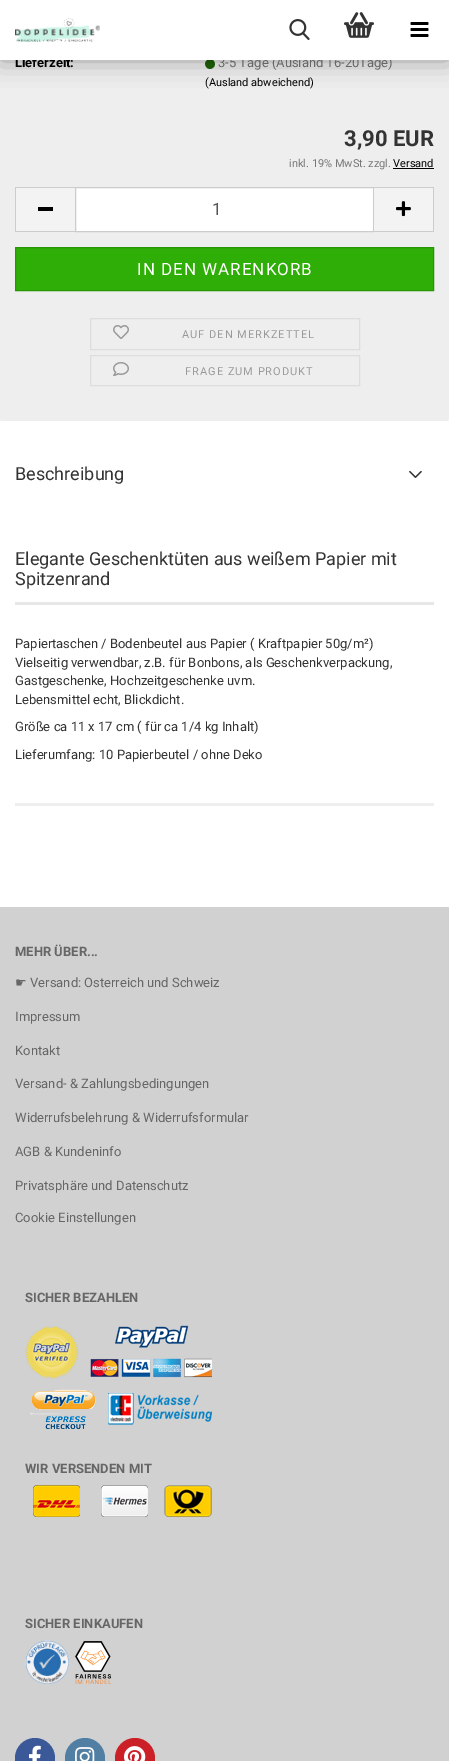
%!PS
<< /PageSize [449 1761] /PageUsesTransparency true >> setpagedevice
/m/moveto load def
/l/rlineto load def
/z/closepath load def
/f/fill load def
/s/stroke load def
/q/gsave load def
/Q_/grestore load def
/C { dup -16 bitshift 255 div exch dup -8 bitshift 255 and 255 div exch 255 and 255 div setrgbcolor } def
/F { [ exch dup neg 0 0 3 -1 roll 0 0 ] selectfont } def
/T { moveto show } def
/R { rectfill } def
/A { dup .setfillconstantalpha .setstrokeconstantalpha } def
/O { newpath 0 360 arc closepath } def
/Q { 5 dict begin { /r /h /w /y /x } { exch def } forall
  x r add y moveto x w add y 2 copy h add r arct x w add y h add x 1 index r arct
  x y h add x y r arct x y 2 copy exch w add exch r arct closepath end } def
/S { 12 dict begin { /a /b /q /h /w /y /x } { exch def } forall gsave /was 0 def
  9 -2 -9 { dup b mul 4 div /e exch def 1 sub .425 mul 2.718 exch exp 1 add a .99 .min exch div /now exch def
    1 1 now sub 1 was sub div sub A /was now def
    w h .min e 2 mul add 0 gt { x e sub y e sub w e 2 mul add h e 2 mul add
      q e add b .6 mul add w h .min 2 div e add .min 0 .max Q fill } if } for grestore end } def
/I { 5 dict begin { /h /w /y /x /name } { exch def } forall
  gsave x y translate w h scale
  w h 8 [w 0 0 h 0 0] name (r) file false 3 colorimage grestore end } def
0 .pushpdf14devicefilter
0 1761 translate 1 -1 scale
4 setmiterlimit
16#FFFFFF C
0 0 449 1761 R
16#EEEEEE C
0 7 449 414 2 Q f
(5.rgb) 205 60 10 9 I
16#000000 C
0 0 449 60 0 12.5 .35 S
/Roboto-Bold 13 F
(Lieferzeit:) 15 67 T
/Roboto-Regular 13 F
16#666666 C
(3-5 Tage \(Ausland 16-20Tage\)) 218 67 T
16#FFFFFF C
0 0 449 60 R
(1.rgb) 15 18 85 24 I
(2.rgb) 289 19 21 21 I
(3.rgb) 344 12 30 26 I
(4.rgb) 410 22 19 15 I
/Roboto-Regular 11 F
16#000000 C
(\(Ausland abweichend\)) 205 86 T
/Roboto-Bold 22 F
16#333333 C
(3,90 EUR) 344 146 T
/Roboto-Regular 11 F
16#777777 C
(inkl. 19% MwSt. zzgl.) 289 167 T
16#000000 C
(Versand) 393 167 T
393 168 41 1 R
16#F3F3F3 C
16 188 59 43 R
16#CCCCCC C
15 187 60 1 R
15 231 60 1 R
15 187 1 45 R
16#000000 C
38 207 15 4 R
16#FFFFFF C
75.5 187.5 m 298 0 l 0 44 l -298 0 l z q f Q_
16#CCCCCC C
s
/Roboto-Regular 17 F
16#555555 C
(1) 212 215 T
16#F3F3F3 C
374 188 59 43 R
16#CCCCCC C
374 187 60 1 R
433 187 1 45 R
374 231 60 1 R
(6.rgb) 396 201 15 16 I
16#2EAE06 C
15.5 247.5 m 418 0 l 0 43 l -418 0 l z q f Q_
16#279505 C
s
16#FFFFFF C
137 275 m 1 0 (IN DEN WARENKORB) ashow
16#DDDDDD C
90.5 318.5 269 31 rectstroke
(7.rgb) 113 325 16 14 I
/Roboto-Regular 11 F
16#999999 C
182 338 m 1 0 (AUF DEN MERKZETTEL) ashow
16#DDDDDD C
90.5 355.5 269 30 rectstroke
(8.rgb) 113 362 16 14 I
16#999999 C
185 375 m 1 0 (FRAGE ZUM PRODUKT) ashow
/Roboto-Regular 18 F
16#333333 C
(Beschreibung) 15 480 T
(9.rgb) 409 470 13 8 I
16#EEEEEE C
15 803 419 3 R
16#E7E7E7 C
15 602 419 3 R
16#333333 C
(Elegante Geschenktüten aus weißem Papier mit) 15 565 T
(Spitzenrand) 15 585 T
/Roboto-Regular 13 F
(Papiertaschen / Bodenbeutel aus Papier \( Kraftpapier 50g/m²\)) 15 648 T
(Vielseitig verwendbar, z.B. für Bonbons, als Geschenkverpackung,) 15 667 T
(Gastgeschenke, Hochzeitgeschenke uvm.) 15 685 T
(Lebensmittel echt, Blickdicht.) 15 704 T
(Größe ca 11 x 17 cm \( für ca 1/4 kg Inhalt\)) 15 731 T
(Lieferumfang: 10 Papierbeutel / ohne Deko) 15 759 T
16#D1D1D1 C
0 907 449 854 R
/Roboto-Bold 13 F
16#666666 C
(MEHR ÜBER...) 15 956 T
/DejaVuSans-Regular 13 F
(☛) 15 987 T
/Roboto-Regular 13 F
(Versand: Osterreich und Schweiz) 30 987 T
(Impressum) 15 1021 T
(Kontakt) 15 1055 T
(Versand- & Zahlungsbedingungen) 15 1088 T
(Widerrufsbelehrung & Widerrufsformular) 15 1122 T
(AGB & Kundeninfo) 15 1156 T
(Privatsphäre und Datenschutz) 15 1190 T
(Cookie Einstellungen) 15 1222 T
/Roboto-Bold 13 F
(SICHER BEZAHLEN) 25 1302 T
(10.rgb) 25 1325 187 104 I
(WIR VERSENDEN MIT) 25 1473 T
(11.rgb) 33 1485 179 32 I
(SICHER EINKAUFEN) 25 1628 T
(12.rgb) 25 1640 44 44 I
(13.rgb) 74 1641 38 43 I
16#3B5998 C
35 1758 20 O f
(14.rgb) 29 1745 12 16 I
16#517FA4 C
85 1758 20 O f
(15.rgb) 75 1747 20 14 I
16#CB2027 C
135 1758 20 O f
(16.rgb) 124 1746 22 15 I
.poppdf14devicefilter showpage
